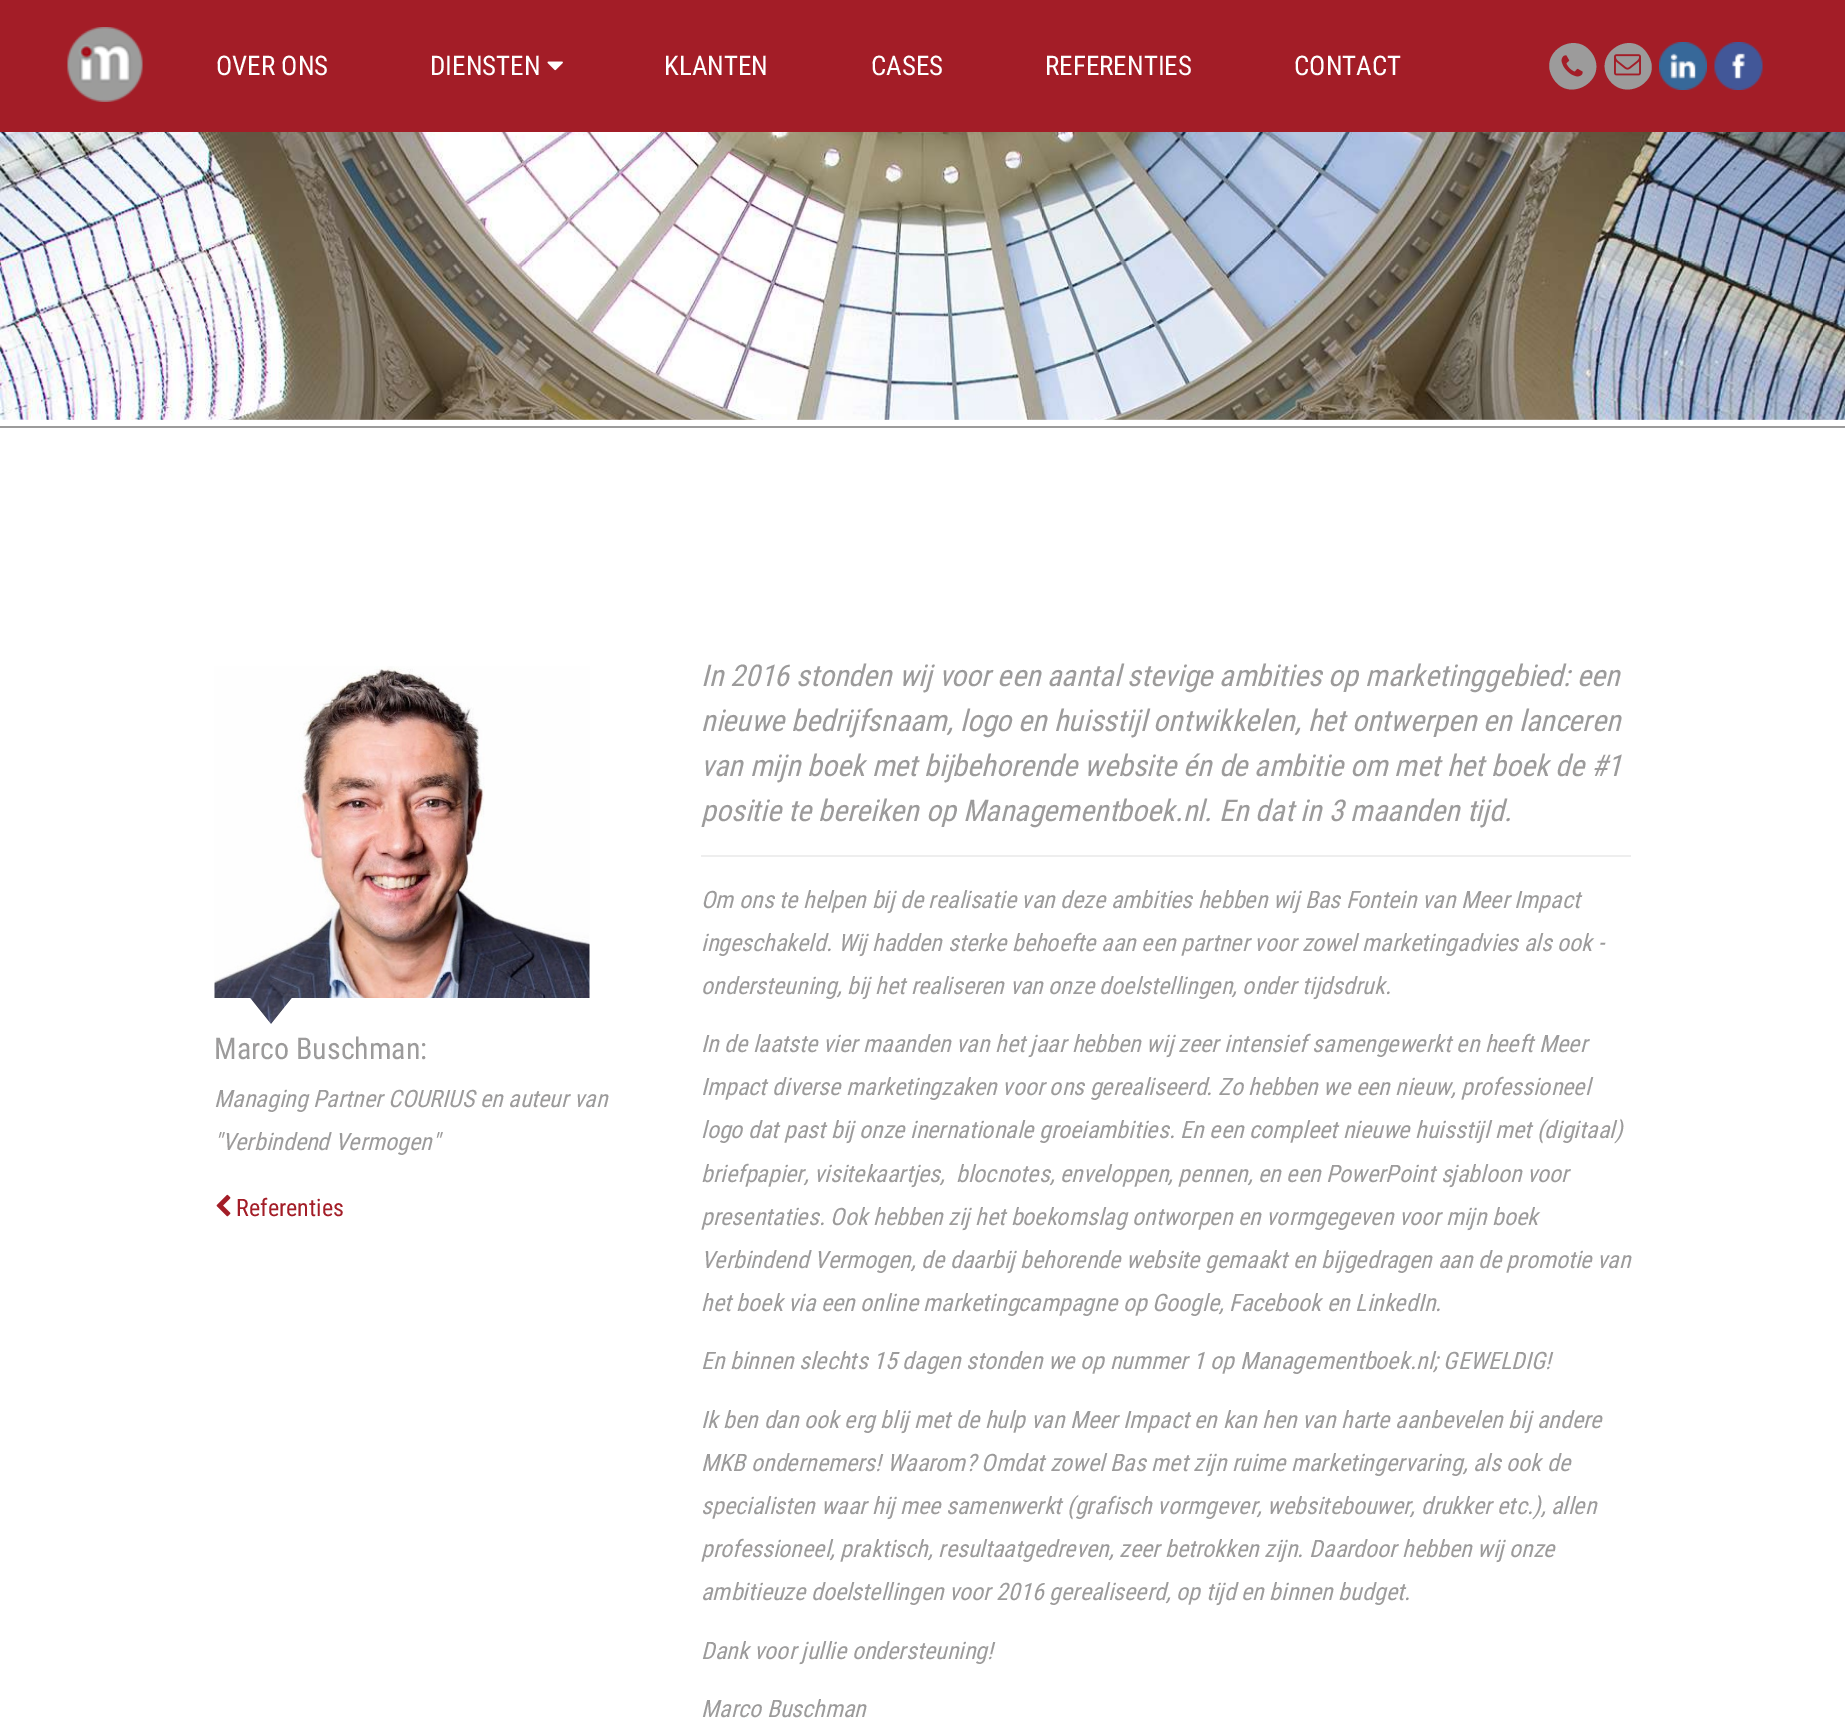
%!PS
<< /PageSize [1845 1732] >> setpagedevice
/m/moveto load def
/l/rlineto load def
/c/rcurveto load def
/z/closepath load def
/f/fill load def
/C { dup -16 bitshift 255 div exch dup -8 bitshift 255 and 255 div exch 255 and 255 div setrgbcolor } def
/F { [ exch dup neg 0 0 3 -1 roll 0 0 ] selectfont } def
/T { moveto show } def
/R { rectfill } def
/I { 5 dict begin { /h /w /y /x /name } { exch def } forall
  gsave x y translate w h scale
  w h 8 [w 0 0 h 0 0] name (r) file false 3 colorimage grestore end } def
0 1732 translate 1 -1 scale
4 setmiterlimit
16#FFFFFF C
0 0 1845 1732 R
16#A31D27 C
0 0 1845 132 R
(1.rgb) 67 27 76 75 I
/RobotoCondensed-Regular 27 F
16#FFFFFF C
(OVER ONS) 216 75 T
(DIENSTEN) 430 75 T
(2.rgb) 547 61 16 10 I
(KLANTEN) 664 75 T
(CASES) 871 75 T
(REFERENTIES) 1045 75 T
(CONTACT) 1294 75 T
16#9C9B9B C
1593 55 m 15 26 -25 49 -40 23 c -16 -26 24 -50 40 -23 c z f
(3.rgb) 1561 55 22 22 I
1648 55 m 16 26 -24 49 -40 23 c -15 -26 25 -50 40 -23 c z f
(4.rgb) 1614 54 27 22 I
(5.rgb) 1659 42 48 48 I
(6.rgb) 1714 42 49 48 I
0 426 1845 2 R
(7.rgb) 0 132 1845 288 I
(8.rgb) 214 666 376 359 I
16#FFFFFF C
274 1028 m -60 0 l 0 -30 l 36 0 l z f
590 1028 m -322 0 l 24 -30 l 298 0 l z f
/RobotoCondensed-Regular 30 F
16#9C9B9B C
(Marco Buschman:) 214 1059 T
/RobotoCondensed-Italic 24 F
(Managing Partner COURIUS en auteur van) 214 1107 T
("Verbindend Vermogen") 214 1150 T
(9.rgb) 216 1194 15 23 I
/RobotoCondensed-Regular 24 F
16#A31D27 C
(Referenties) 236 1216 T
16#EEEEEE C
701 855 930 2 R
/RobotoCondensed-Italic 30 F
16#9C9B9B C
(In 2016 stonden wij voor een aantal stevige ambities op marketinggebied: een) 701 686 T
(nieuwe bedrijfsnaam, logo en huisstijl ontwikkelen, het ontwerpen en lanceren) 701 731 T
(van mijn boek met bijbehorende website én de ambitie om met het boek de #1) 701 776 T
(positie te bereiken op Managementboek.nl. En dat in 3 maanden tijd.) 701 821 T
/RobotoCondensed-Italic 24 F
(Om ons te helpen bij de realisatie van deze ambities hebben wij Bas Fontein van Meer Impact) 701 908 T
(ingeschakeld. Wij hadden sterke behoefte aan een partner voor zowel marketingadvies als ook -) 701 951 T
(ondersteuning, bij het realiseren van onze doelstellingen, onder tijdsdruk.) 701 994 T
(In de laatste vier maanden van het jaar hebben wij zeer intensief samengewerkt en heeft Meer) 701 1052 T
(Impact diverse marketingzaken voor ons gerealiseerd. Zo hebben we een nieuw, professioneel) 701 1095 T
(logo dat past bij onze inernationale groeiambities. En een compleet nieuwe huisstijl met \(digitaal\)) 701 1138 T
(briefpapier, visitekaartjes,  blocnotes, enveloppen, pennen, en een PowerPoint sjabloon voor) 701 1182 T
(presentaties. Ook hebben zij het boekomslag ontworpen en vormgegeven voor mijn boek) 701 1225 T
(Verbindend Vermogen, de daarbij behorende website gemaakt en bijgedragen aan de promotie van) 701 1268 T
(het boek via een online marketingcampagne op Google, Facebook en LinkedIn.) 701 1311 T
(En binnen slechts 15 dagen stonden we op nummer 1 op Managementboek.nl; GEWELDIG!) 701 1369 T
(Ik ben dan ook erg blij met de hulp van Meer Impact en kan hen van harte aanbevelen bij andere) 701 1428 T
(MKB ondernemers! Waarom? Omdat zowel Bas met zijn ruime marketingervaring, als ook de) 701 1471 T
(specialisten waar hij mee samenwerkt \(grafisch vormgever, websitebouwer, drukker etc.\), allen) 701 1514 T
(professioneel, praktisch, resultaatgedreven, zeer betrokken zijn. Daardoor hebben wij onze) 701 1557 T
(ambitieuze doelstellingen voor 2016 gerealiseerd, op tijd en binnen budget.) 701 1600 T
(Dank voor jullie ondersteuning!) 701 1659 T
(Marco Buschman) 701 1717 T
showpage
